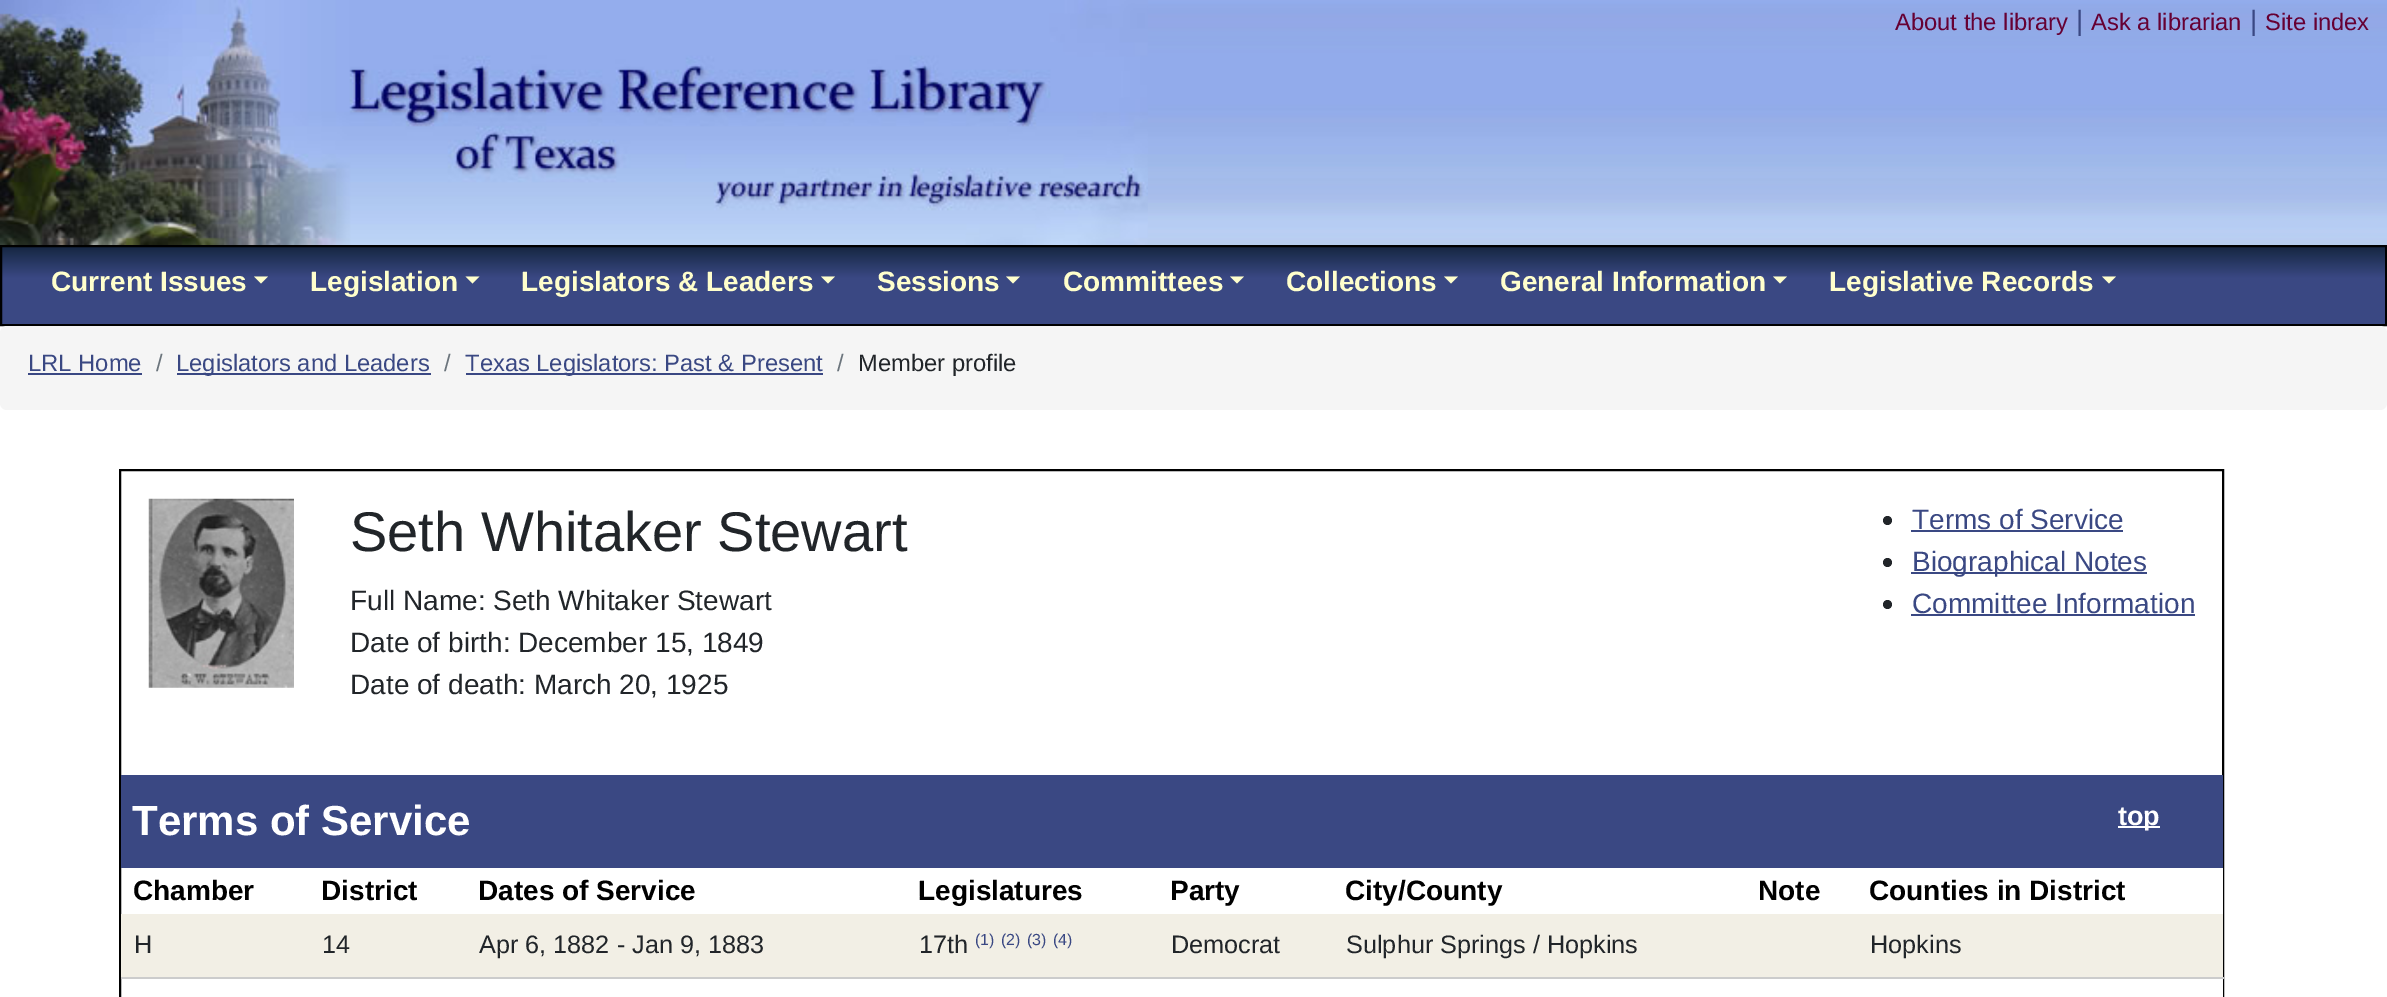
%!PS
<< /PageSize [2387 997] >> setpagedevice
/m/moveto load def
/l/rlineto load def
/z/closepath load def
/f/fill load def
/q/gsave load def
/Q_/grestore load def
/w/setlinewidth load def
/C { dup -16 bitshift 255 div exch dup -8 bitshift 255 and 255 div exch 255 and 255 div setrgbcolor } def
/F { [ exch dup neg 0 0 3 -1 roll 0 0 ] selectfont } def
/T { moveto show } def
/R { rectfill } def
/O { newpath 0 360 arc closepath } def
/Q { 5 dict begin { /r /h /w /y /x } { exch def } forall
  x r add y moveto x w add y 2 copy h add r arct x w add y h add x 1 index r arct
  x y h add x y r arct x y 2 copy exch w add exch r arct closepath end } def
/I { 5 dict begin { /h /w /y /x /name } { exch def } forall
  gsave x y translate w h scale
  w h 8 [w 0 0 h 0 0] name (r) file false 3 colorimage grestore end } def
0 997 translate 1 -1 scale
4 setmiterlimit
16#FFFFFF C
0 0 2387 997 R
(1.rgb) 1148 0 1239 245 I
(2.rgb) 0 0 1148 245 I
/LiberationSans-Regular 23.75 F
16#660033 C
(About the library) 1895 30 T
/LiberationSans-Regular 28 F
16#3A4883 C
(|) 2076 30 T
/LiberationSans-Regular 23.75 F
16#660033 C
(Ask a librarian) 2091 30 T
/LiberationSans-Regular 28 F
16#3A4883 C
(|) 2250 30 T
/LiberationSans-Regular 23.75 F
16#660033 C
(Site index) 2265 30 T
q 2 247 m 2383 0 l 0 77 l -2383 0 l z clip newpath
<< /ShadingType 2 /ColorSpace /DeviceRGB /Coords [1194 247 1194 324] /Extend [true true] /Function << /FunctionType 3 /Domain [0 1] /Functions [<< /FunctionType 2 /Domain [0 1] /C0 [.086 .153 .259] /C1 [.227 .282 .514] /N 1 >> << /FunctionType 2 /Domain [0 1] /C0 [.227 .282 .514] /C1 [.227 .282 .514] /N 1 >>] /Bounds [.4] /Encode [0 1 0 1] >> >> shfill Q_
16#000000 C
2 w
1 246 2385 79 rectstroke
/LiberationSans-Bold 28 F
16#FFFFCC C
(Current Issues) 51 291 T
254 276.5 m 14 0 l -7 7 l z f
(Legislation) 310 291 T
465.5 276.5 m 14 0 l -7 7 l z f
(Legislators & Leaders) 521 291 T
821 276.5 m 14 0 l -7 7 l z f
(Sessions) 877 291 T
1006 276.5 m 14 0 l -7 7 l z f
(Committees) 1063 291 T
1230 276.5 m 14 0 l -7 7 l z f
(Collections) 1286 291 T
1444 276.5 m 14 0 l -7 7 l z f
(General Information) 1500 291 T
1773 276.5 m 14 0 l -7 7 l z f
(Legislative Records) 1829 291 T
2102 276.5 m 14 0 l -7 7 l z f
16#F5F5F5 C
0 326 2387 84 7 Q f
/LiberationSans-Regular 23.75 F
16#3A4883 C
(LRL Home) 28 371 T
28 373 114 2 R
16#6C757D C
(/) 156 371 T
16#3A4883 C
177 373 254 2 R
(Legislators and Leaders) 176 371 T
16#6C757D C
(/) 444 371 T
16#3A4883 C
466 373 357 2 R
(Texas Legislators: Past & Present) 465 371 T
16#6C757D C
(/) 837 371 T
16#212529 C
(Member profile) 858 371 T
16#000000 C
120 470 2103 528 rectstroke
(3.rgb) 148 498 146 190 I
/LiberationSans-Regular 56 F
16#212529 C
(Seth Whitaker Stewart) 350 551 T
/LiberationSans-Regular 28 F
(Full Name: Seth Whitaker Stewart) 350 610 T
(Date of birth: December 15, 1849) 350 652 T
(Date of death: March 20, 1925) 350 694 T
1887.5 520.5 4.5 O f
16#3A4883 C
(Terms of Service) 1912 529 T
1911 530 212 2 R
16#212529 C
1887.5 562.5 4.5 O f
16#3A4883 C
1911 572 236 2 R
(Biographical Notes) 1912 571 T
16#212529 C
1887.5 604.5 4.5 O f
16#3A4883 C
(Committee Information) 1912 613 T
1911 614 284 2 R
121 775 2102 93 R
/LiberationSans-Bold 42 F
16#FFFFFF C
(Terms of Service) 132 835 T
2118 826 42 2 R
/LiberationSans-Bold 27 F
(top) 2118 825 T
2222 868 1 129 R
/LiberationSans-Bold 28 F
16#000000 C
(Chamber) 133 900 T
(District) 321 900 T
(Dates of Service) 478 900 T
(Legislatures) 918 900 T
(Party) 1170 900 T
(City/County) 1345 900 T
(Note) 1758 900 T
(Counties in District) 1869 900 T
16#F2EFE5 C
121 914 2102 63 R
/LiberationSans-Regular 25.25 F
16#212529 C
(H) 134 953 T
(14) 322 953 T
(Apr 6, 1882 - Jan 9, 1883) 479 953 T
(17th) 919 953 T
/LiberationSans-Regular 16 F
16#3A4883 C
(\(1\)) 975 945 T
(\(2\)) 1001 945 T
(\(3\)) 1027 945 T
(\(4\)) 1053 945 T
/LiberationSans-Regular 25.25 F
16#212529 C
(Democrat) 1171 953 T
(Sulphur Springs / Hopkins) 1346 953 T
16#CCCCCC C
121 977 2103 2 R
16#212529 C
(Hopkins) 1870 953 T
showpage
